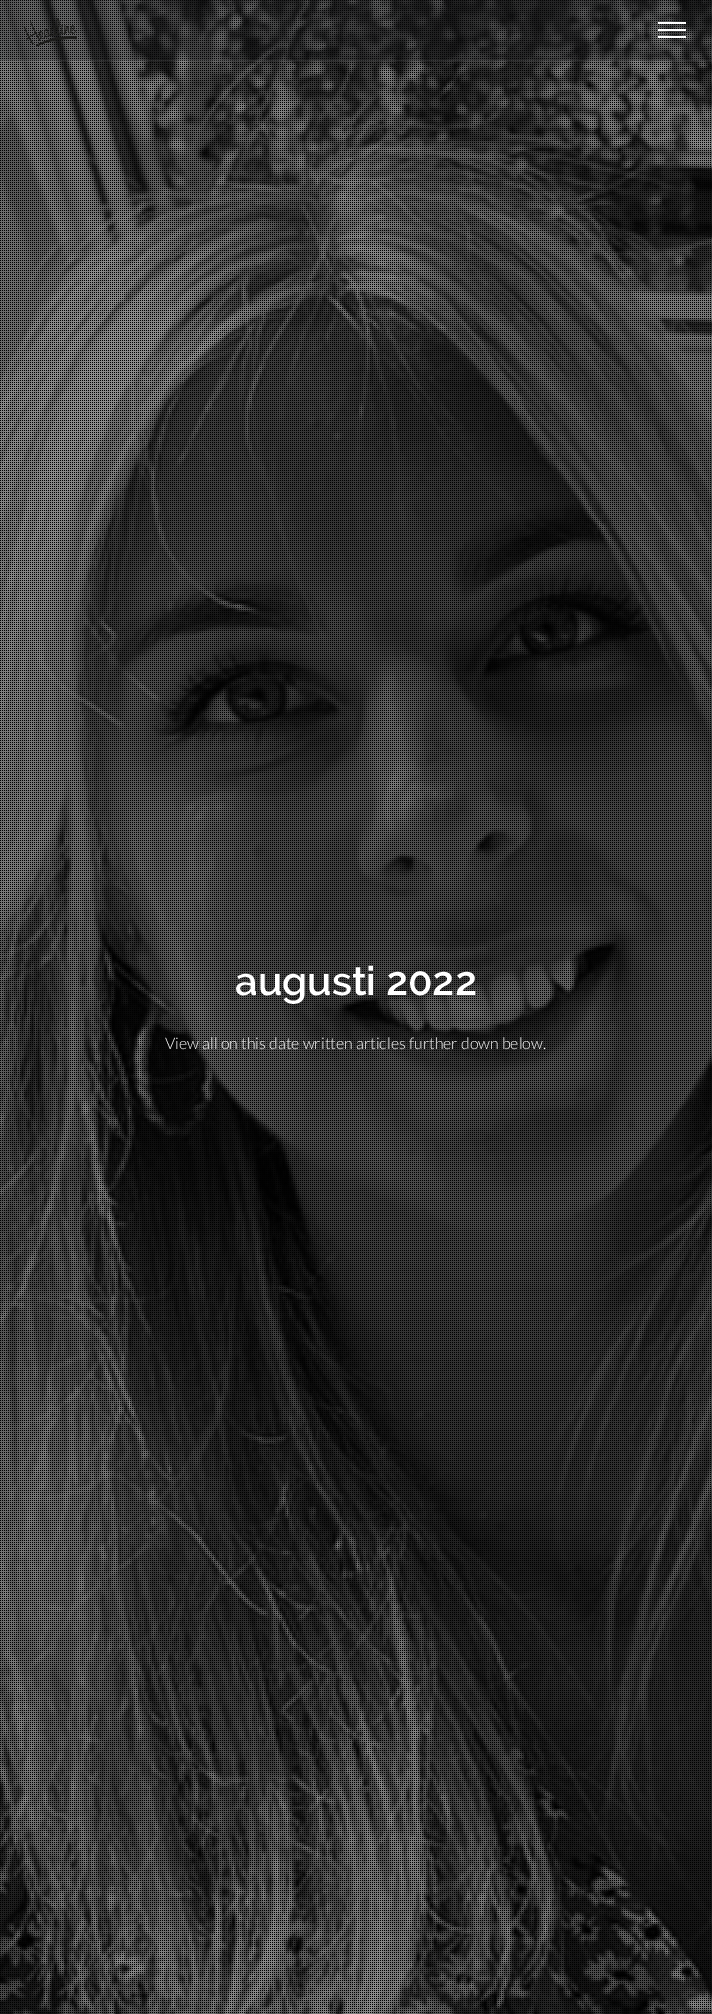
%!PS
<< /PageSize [712 2014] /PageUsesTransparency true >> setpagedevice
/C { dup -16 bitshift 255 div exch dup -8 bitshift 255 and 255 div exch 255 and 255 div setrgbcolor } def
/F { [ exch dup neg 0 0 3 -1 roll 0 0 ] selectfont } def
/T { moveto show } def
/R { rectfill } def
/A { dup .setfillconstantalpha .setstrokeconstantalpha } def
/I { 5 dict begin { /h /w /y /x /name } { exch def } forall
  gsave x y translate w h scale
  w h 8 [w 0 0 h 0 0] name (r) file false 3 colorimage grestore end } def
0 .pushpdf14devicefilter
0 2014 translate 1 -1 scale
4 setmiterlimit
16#FFFFFF C
0 0 712 2014 R
(2.rgb) 0 0 712 2014 I
(3.rgb) 0 0 712 2014 I
0.25 A
16#131416 C
0 0 712 61 R
0.1 A
16#FFFFFF C
0 60 712 1 R
1 A
(1.rgb) 23 18 54 29 I
658 29 28 2 R
658 22 28 2 R
658 36 28 2 R
/Raleway-SemiBold 40 F
(augusti 2022) 235 995 T
/Lato-Light 16 F
(View all on this date written articles further down below.) 165 1049 T
.poppdf14devicefilter showpage
